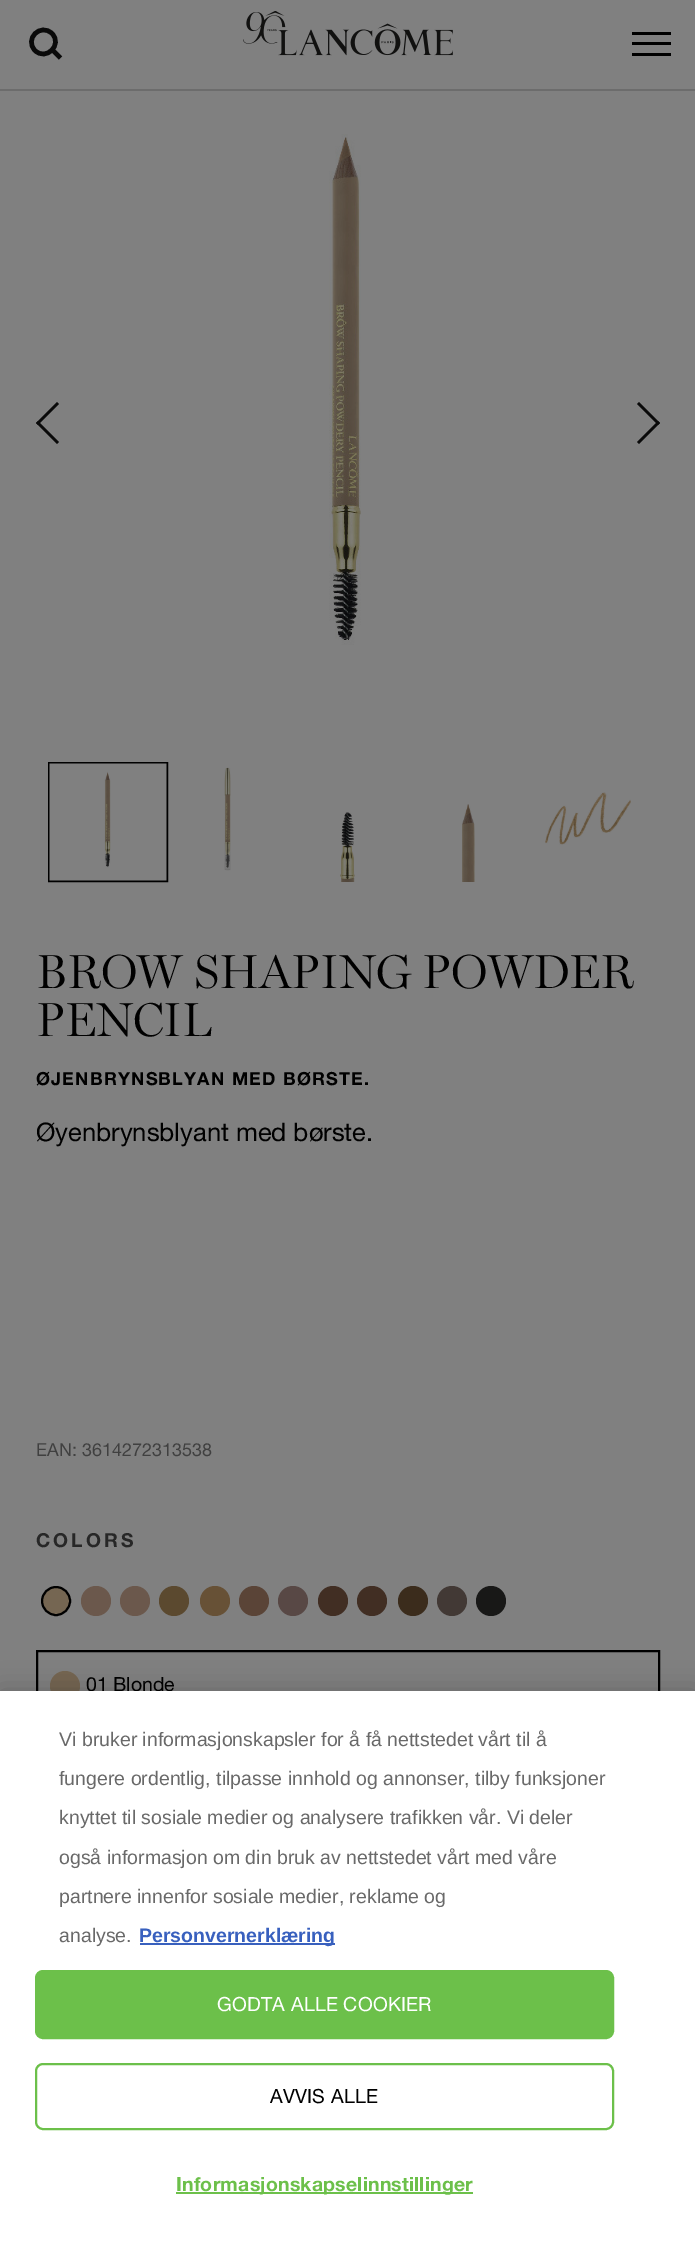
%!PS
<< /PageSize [695 2244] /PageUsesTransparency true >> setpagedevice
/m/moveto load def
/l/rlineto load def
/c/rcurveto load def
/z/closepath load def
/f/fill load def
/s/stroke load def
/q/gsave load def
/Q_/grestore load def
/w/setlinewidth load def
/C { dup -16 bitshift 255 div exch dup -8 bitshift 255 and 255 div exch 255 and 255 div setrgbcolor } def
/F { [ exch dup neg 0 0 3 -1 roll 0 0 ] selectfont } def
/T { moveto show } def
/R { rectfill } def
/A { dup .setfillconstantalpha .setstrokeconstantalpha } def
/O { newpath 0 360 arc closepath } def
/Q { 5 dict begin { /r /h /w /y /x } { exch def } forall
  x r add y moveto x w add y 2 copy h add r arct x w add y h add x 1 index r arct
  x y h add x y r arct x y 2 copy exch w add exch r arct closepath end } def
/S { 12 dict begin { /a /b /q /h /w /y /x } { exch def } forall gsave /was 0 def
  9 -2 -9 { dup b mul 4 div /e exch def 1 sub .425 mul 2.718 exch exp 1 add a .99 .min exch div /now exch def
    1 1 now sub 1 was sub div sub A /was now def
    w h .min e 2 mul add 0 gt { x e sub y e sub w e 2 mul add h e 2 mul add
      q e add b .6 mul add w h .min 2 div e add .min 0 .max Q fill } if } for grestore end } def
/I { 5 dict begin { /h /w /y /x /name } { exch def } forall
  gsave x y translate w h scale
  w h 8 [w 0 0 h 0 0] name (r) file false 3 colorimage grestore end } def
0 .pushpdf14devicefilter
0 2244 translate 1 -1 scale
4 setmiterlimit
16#808080 C
0 0 695 2244 R
16#6C6C6C C
0 89 695 2 R
16#0A0A0A C
4.5 w
35 50.5 m -11 -11.5 5.5 -28 17 -17 c 11 11 -6 28 -17 17 c z 53 50.5 m 7.5 7.5 l s
(1.rgb) 243 11 210 45 I
16#000000 C
632 32 39 3 R
632 42 39 3 R
632 53 39 3 R
(2.rgb) 329 134 32 511 I
16#0A0A0A C
36 423 m 21 -21 l 2 2 l -21 21 l z eofill
38 421 m 21 21 l -2 2 l -21 -21 l z eofill
660 423 m -21 21 l -2 -2 l 21 -21 l z eofill
658 425 m -21 -21 l 2 -2 l 21 21 l z eofill
16#000000 C
2 w
49 763 118 118 rectstroke
(3.rgb) 49 763 118 118 I
(4.rgb) 224 767 7 104 I
(5.rgb) 340 812 15 70 I
(6.rgb) 462 804 13 78 I
(7.rgb) 545 792 86 53 I
/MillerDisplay-Light 48 F
(BROW SHAPING POWDER) 36 988 T
(PENCIL) 36 1036 T
/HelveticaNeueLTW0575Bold-Bold 18 F
36 1085 m 1.2 0 (ØJENBRYNSBLYAN MED BØRSTE.) ashow
/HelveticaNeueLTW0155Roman-Regular 25.5 F
(Øyenbrynsblyant med børste.) 36 1141 T
/HelveticaNeueLTW0155Roman-Regular 18 F
16#404040 C
(EAN: 3614272313538) 36 1456 T
/HelveticaNeueLTW0575Bold-Bold 19.25 F
16#272727 C
36 1547 m 3 0 (COLORS) ashow
16#756652 C
56 1601 14 O q f Q_
16#000000 C
s
16#6B584C C
96 1601 15 O f
135 1601 15 O f
16#5B492F C
174 1601 15 O f
16#675136 C
215 1601 15 O f
16#5A4437 C
254 1601 15 O f
16#584845 C
293 1601 15 O f
16#412E23 C
333 1601 15 O f
372 1601 15 O f
16#3B2C1C C
413 1601 15 O f
16#423935 C
452 1601 15 O f
16#181817 C
491 1601 15 O f
16#000000 C
37 1651 622 63 rectstroke
16#756652 C
65 1686 15 O f
/HelveticaNeueLTW0155Roman-Regular 19.5 F
16#000000 C
(01 Blonde) 86 1691 T
0 1691 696 553 0 13.5 .2 S
16#FFFFFF C
0 1691 695 553 R
/LiberationSans-Regular 19.5 F
16#696969 C
(Vi bruker informasjonskapsler for å få nettstedet vårt til å) 59 1746 T
(fungere ordentlig, tilpasse innhold og annonser, tilby funksjoner) 59 1785 T
(knyttet til sosiale medier og analysere trafikken vår. Vi deler) 59 1824 T
(også informasjon om din bruk av nettstedet vårt med våre) 59 1864 T
(partnere innenfor sosiale medier, reklame og) 59 1903 T
(analyse.) 59 1942 T
16#3860BE C
140 1943 195 2 R
/LiberationSans-Bold 19.5 F
(Personvernerklæring) 139 1942 T
16#6CC04A C
36 1971 577 67 7 Q q f Q_
s
/HelveticaNeueLTW0155Roman-Regular 19.5 F
16#FFFFFF C
217 2011 m .2 0 (GODTA ALLE COOKIER) ashow
16#6CC04A C
36 2064 577 65 7 Q s
16#000000 C
270 2103 m .2 0 (AVVIS ALLE) ashow
16#6CC04A C
176 2192 297 2 R
/HelveticaNeueLTW0575Bold-Bold 19.5 F
176 2191 m .2 0 (Informasjonskapselinnstillinger) ashow
.poppdf14devicefilter showpage
